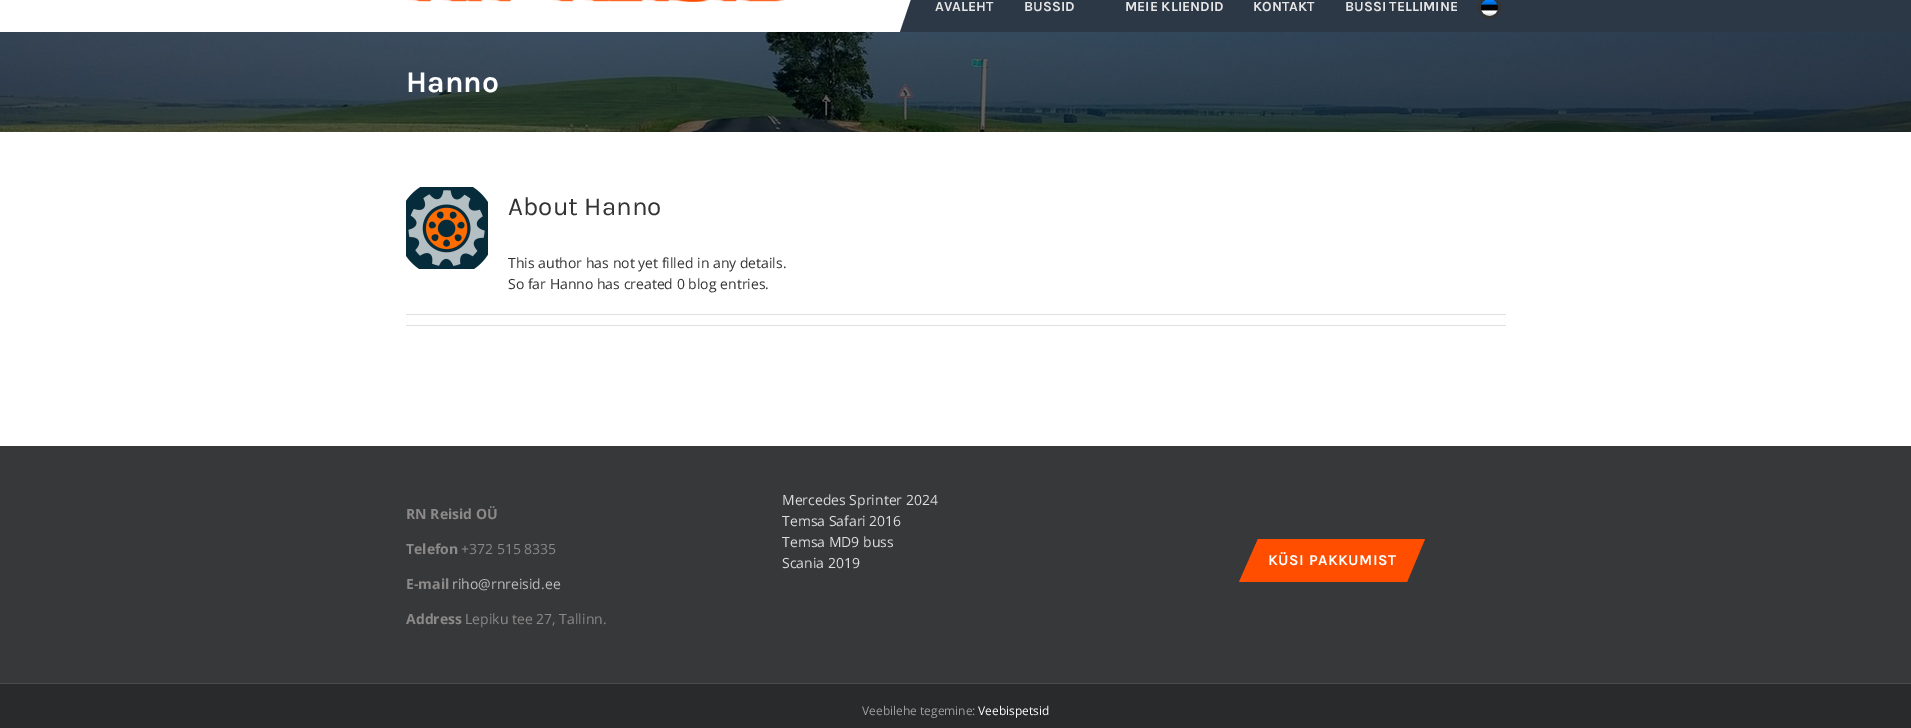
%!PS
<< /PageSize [1911 728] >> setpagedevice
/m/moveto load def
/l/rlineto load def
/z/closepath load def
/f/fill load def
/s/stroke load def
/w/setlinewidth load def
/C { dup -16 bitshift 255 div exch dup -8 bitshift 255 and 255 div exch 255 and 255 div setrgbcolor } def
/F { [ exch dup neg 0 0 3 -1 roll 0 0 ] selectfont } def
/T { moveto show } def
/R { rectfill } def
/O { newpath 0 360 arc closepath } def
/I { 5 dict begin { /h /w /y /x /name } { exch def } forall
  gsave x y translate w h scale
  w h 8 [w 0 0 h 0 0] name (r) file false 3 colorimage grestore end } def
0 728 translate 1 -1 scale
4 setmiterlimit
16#FFFFFF C
0 0 1911 728 R
(1.rgb) 408 0 377 2 I
16#2D3847 C
930 0 981 32 R
917 -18 m -17 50 l 30 0 l 0 -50 l z f
/Karla-Bold 14 F
16#E5E5E5 C
(AVALEHT) 935 11 T
(BUSSID) 1024 11 T
(MEIE KLIENDID) 1125 11 T
(KONTAKT) 1253 11 T
(BUSSI TELLIMINE) 1345 11 T
16#333333 C
3 w
1489.5 7.5 10 O s
(2.rgb) 1481 0 17 16 I
(3.rgb) 0 32 1911 100 I
/Karla-Bold 30 F
16#FFFFFF C
(Hanno) 406 92 T
(4.rgb) 406 187 82 82 I
/Karla-Regular 26 F
16#333333 C
(About Hanno) 508 215 T
/OpenSans-Regular 14 F
(This author has not yet filled in any details.) 508 268 T
(So far Hanno has created 0 blog entries.) 508 289 T
16#E0DEDE C
406 314 1100 1 R
406 325 1100 1 R
16#363839 C
0 446 1911 237 R
/OpenSans-Bold 14 F
16#8C8989 C
(RN Reisid OÜ) 406 519 T
(Telefon) 406 554 T
/OpenSans-Regular 14 F
(+372 515 8335) 461 554 T
/OpenSans-Bold 14 F
(E-mail) 406 589 T
/OpenSans-Regular 14 F
16#BFBFBF C
(riho@rnreisid.ee) 452 589 T
/OpenSans-Bold 14 F
16#8C8989 C
(Address) 406 624 T
/OpenSans-Regular 14 F
(Lepiku tee 27, Tallinn.) 465 624 T
16#DDDDDD C
(Mercedes Sprinter 2024) 782 505 T
(Temsa Safari 2016) 782 526 T
(Temsa MD9 buss) 782 547 T
(Scania 2019) 782 568 T
16#FF4E00 C
1258 539 m -19 43 l 168 0 l 18 -43 l z f
/Karla-Bold 15 F
16#FFFFFF C
1268 565 m .5 0 (KÜSI PAKKUMIST) ashow
16#282A2B C
0 684 1911 44 R
16#4B4C4D C
0 683 1911 1 R
/OpenSans-Regular 12 F
16#9E9FA0 C
(Veebilehe tegemine:) 862 715 T
16#FFFFFF C
(Veebispetsid) 978 715 T
showpage
